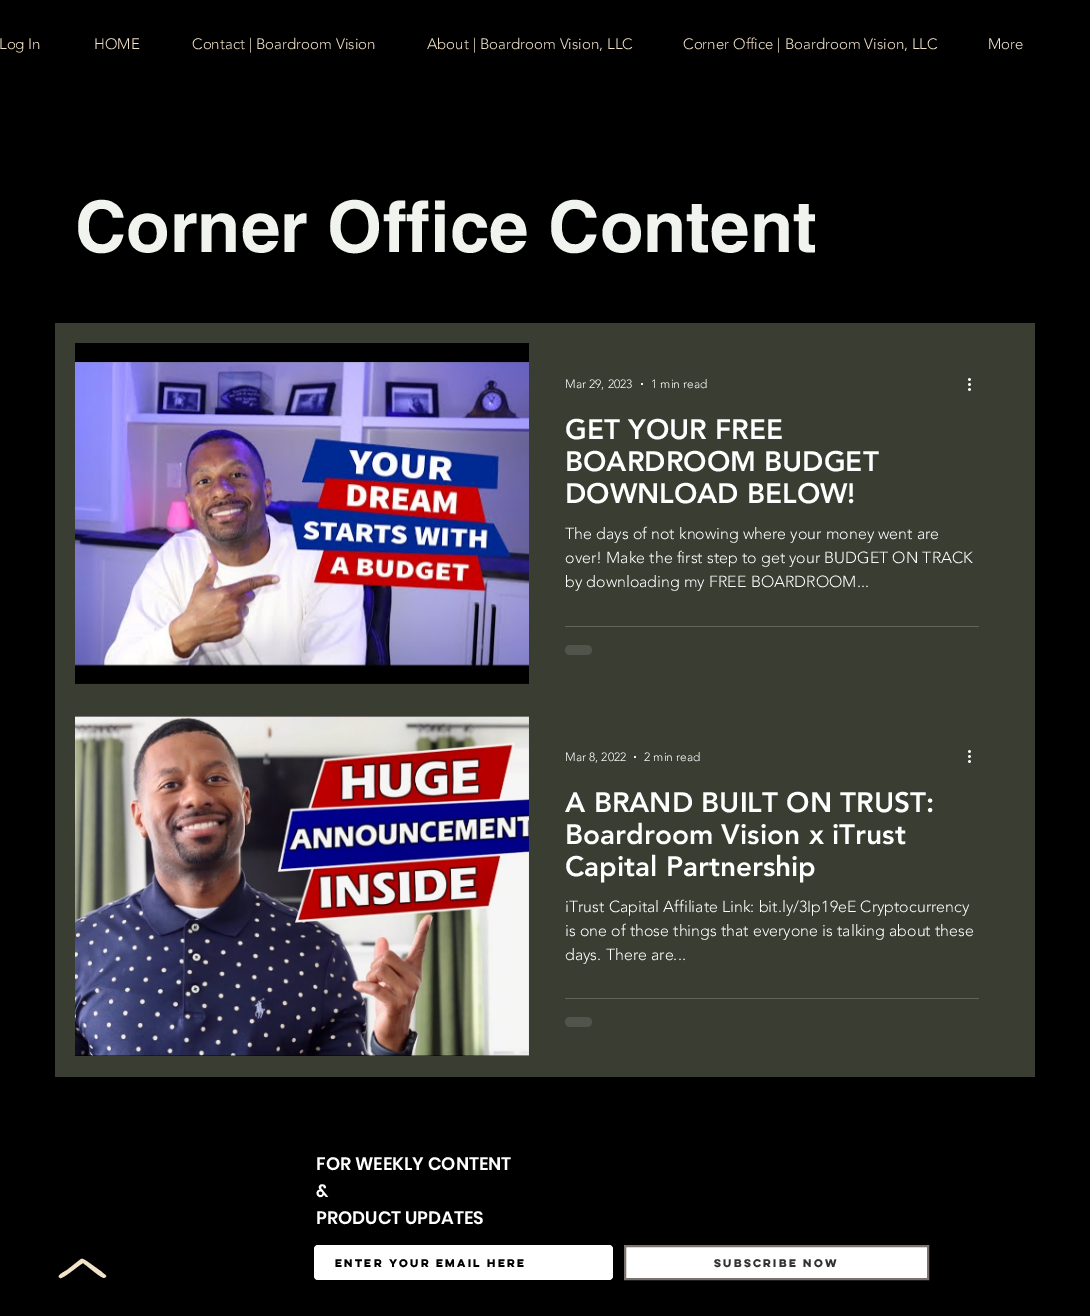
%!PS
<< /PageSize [1090 1316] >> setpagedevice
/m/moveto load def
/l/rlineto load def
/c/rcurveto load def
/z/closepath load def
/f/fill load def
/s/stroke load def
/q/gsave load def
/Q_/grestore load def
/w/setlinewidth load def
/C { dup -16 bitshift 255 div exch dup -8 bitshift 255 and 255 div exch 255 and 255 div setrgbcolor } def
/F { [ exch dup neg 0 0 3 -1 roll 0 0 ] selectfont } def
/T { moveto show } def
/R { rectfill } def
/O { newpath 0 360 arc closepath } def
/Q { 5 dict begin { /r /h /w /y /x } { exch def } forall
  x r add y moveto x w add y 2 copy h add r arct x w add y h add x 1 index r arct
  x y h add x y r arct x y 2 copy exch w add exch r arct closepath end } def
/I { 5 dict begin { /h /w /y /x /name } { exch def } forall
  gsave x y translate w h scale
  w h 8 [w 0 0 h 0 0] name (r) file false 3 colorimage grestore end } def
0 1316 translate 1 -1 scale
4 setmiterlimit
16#000000 C
0 0 1090 1316 R
/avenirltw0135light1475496-Light 15 F
16#F1E3C8 C
(Log In) -1 49 T
(HOME) 94 49 T
(Contact | Boardroom Vision) 192 49 T
(About | Boardroom Vision, LLC) 427 49 T
(Corner Office | Boardroom Vision, LLC) 683 49 T
(More) 988 49 T
/helvetica-Bold 71 F
16#F1F3EE C
(Corner Office Content) 75 252 T
16#393D32 C
55 323 980 754 R
(1.rgb) 75 343 454 340 I
16#030303 C
75 683 454 1 R
/avenirltw0135light1475496-Light 12 F
16#FFFFFF C
(Mar 29, 2023) 565 388 T
642 384 1 O f
(1 min read) 651 388 T
(2.rgb) 968 378 3 13 I
/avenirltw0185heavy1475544-Black 28 F
(GET YOUR FREE) 565 439 T
(BOARDROOM BUDGET) 565 471 T
(DOWNLOAD BELOW!) 565 503 T
/avenirltw0135light1475496-Light 16 F
(The days of not knowing where your money went are) 565 539 T
(over! Make the first step to get your BUDGET ON TRACK) 565 563 T
(by downloading my FREE BOARDROOM...) 565 587 T
16#61645B C
565 626 414 1 R
16#51544B C
565 645 27 10 5 Q f
(3.rgb) 75 716 454 340 I
(4.rgb) 528 716 1 340 I
/avenirltw0135light1475496-Light 12 F
16#FFFFFF C
(Mar 8, 2022) 565 761 T
635 757 1 O f
(2 min read) 644 761 T
(2.rgb) 968 750 3 13 I
/avenirltw0185heavy1475544-Black 28 F
(A BRAND BUILT ON TRUST:) 565 812 T
(Boardroom Vision x iTrust) 565 844 T
(Capital Partnership) 565 876 T
/avenirltw0135light1475496-Light 16 F
(iTrust Capital Affiliate Link: bit.ly/3Ip19eE Cryptocurrency) 565 912 T
(is one of those things that everyone is talking about these) 565 936 T
(days. There are...) 565 960 T
16#61645B C
565 998 414 1 R
16#51544B C
565 1017 27 10 5 Q f
16#F1E3C8 C
104 1278 m -3 0 -18 -13 -21 -15 c -4 2 -20 16 -23 15 c -4 -2 2 -5 7 -8 c 14 -11 l 2 -1 5 2 7 3 c 14 10 l 0 1 5 3 4 5 c z f
/Poppins-SemiBold 18 F
16#FFFFFF C
(FOR WEEKLY CONTENT) 316 1170 T
(&) 316 1197 T
(PRODUCT UPDATES) 316 1224 T
314 1245 299 35 4 Q f
/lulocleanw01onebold-Bold 10 F
16#000000 C
(Enter your email here) 335 1267 T
16#FFFFFF C
625 1246 m 303 0 l 0 33 l -303 0 l z q f Q_
16#7B736F C
2 w
s
16#323232 C
(Subscribe Now) 714 1267 T
showpage
